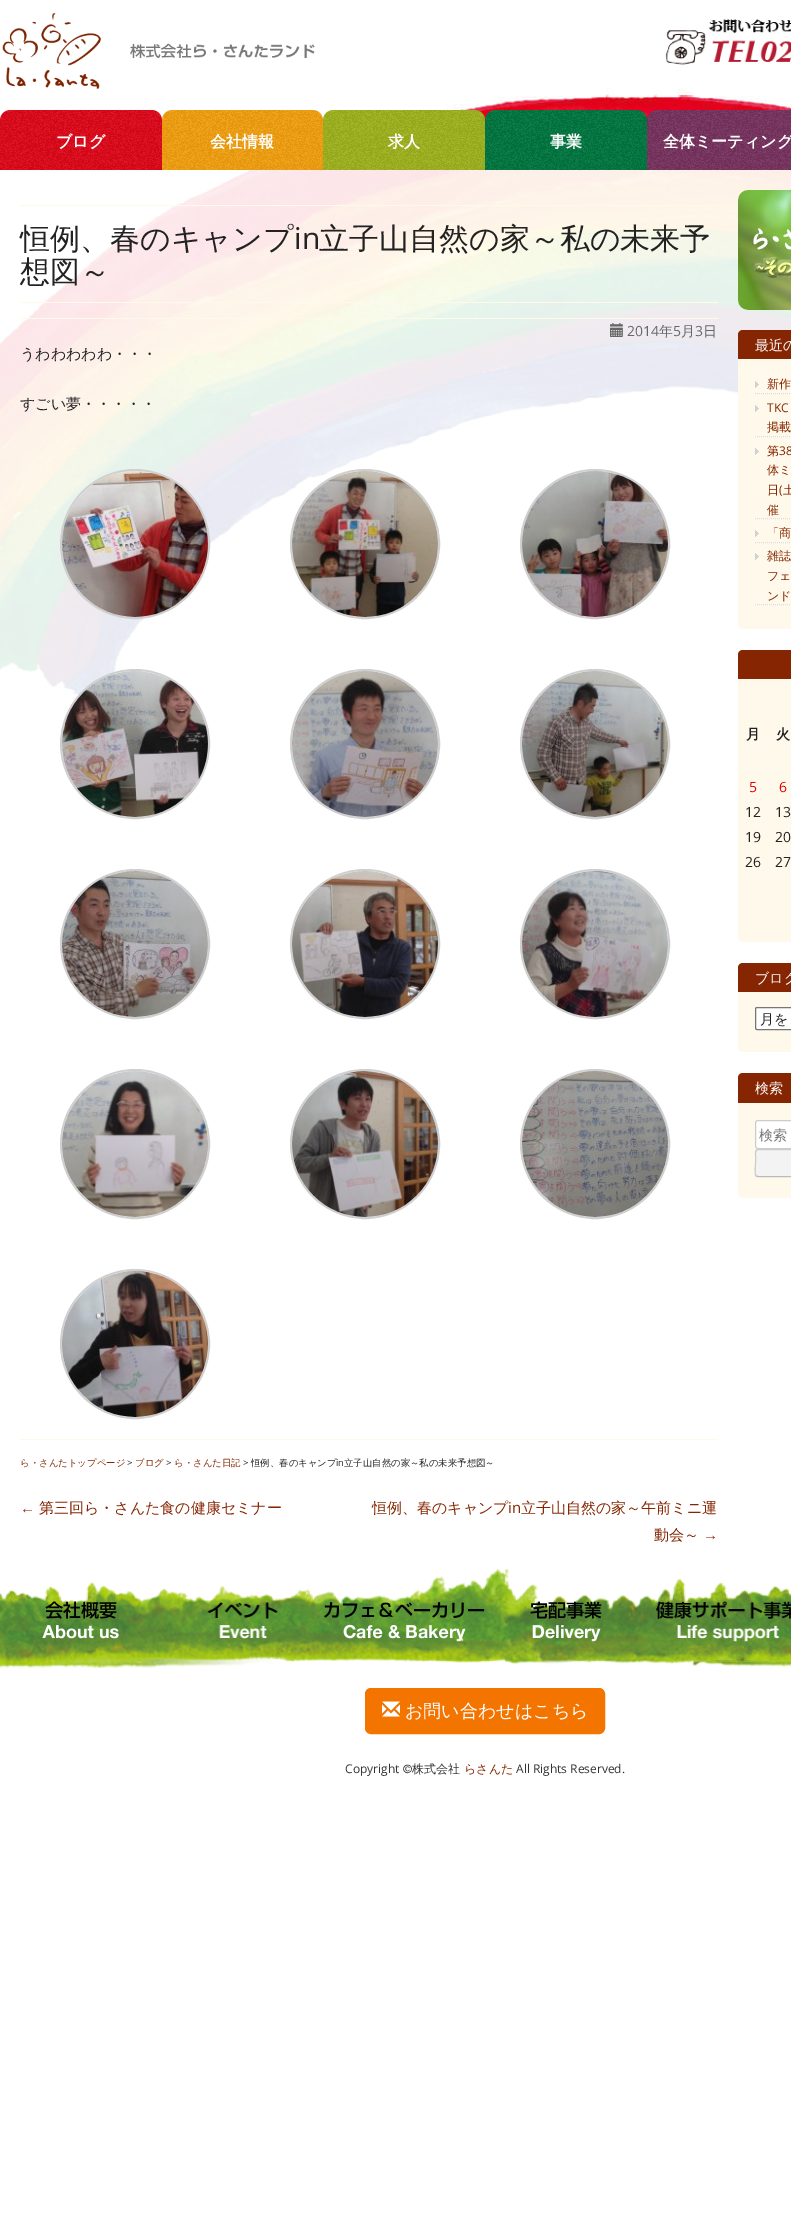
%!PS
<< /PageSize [791 2224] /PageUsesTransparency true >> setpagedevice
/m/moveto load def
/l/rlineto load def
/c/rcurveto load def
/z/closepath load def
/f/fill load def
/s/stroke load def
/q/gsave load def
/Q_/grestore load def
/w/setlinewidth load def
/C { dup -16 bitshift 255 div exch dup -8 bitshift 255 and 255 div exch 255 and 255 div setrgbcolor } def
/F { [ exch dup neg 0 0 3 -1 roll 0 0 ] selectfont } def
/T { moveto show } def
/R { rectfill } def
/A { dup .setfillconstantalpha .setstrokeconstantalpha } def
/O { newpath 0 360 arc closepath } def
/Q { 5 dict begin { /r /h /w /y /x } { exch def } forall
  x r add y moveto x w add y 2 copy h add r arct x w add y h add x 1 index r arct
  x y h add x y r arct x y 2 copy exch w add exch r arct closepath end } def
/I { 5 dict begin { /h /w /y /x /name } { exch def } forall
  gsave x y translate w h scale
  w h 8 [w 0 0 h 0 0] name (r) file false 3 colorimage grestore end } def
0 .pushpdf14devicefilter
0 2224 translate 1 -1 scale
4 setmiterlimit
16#FFFFFF C
0 0 791 2224 R
(1.rgb) 0 88 791 610 I
(2.rgb) 2 13 313 76 I
(3.rgb) 665 19 126 46 I
16#DC0719 C
10 110 m 142 0 l 5.5 0 10 4.5 10 10 c 0 50 l -162 0 l 0 -50 l 0 -5.5 4.5 -10 10 -10 c z f
(4.rgb) 0 110 162 60 I
/WenQuanYiZenHei-Bold 16 F
16#FFFFFF C
(ブログ) 56 147 T
16#F19E10 C
172 110 m 141 0 l 5.5 0 10 4.5 10 10 c 0 50 l -161 0 l 0 -50 l 0 -5.5 4.5 -10 10 -10 c z f
(5.rgb) 162 110 161 60 I
16#FFFFFF C
(会社情報) 210 147 T
16#9DB11E C
333 110 m 142 0 l 5.5 0 10 4.5 10 10 c 0 50 l -162 0 l 0 -50 l 0 -5.5 4.5 -10 10 -10 c z f
(6.rgb) 323 110 162 60 I
16#FFFFFF C
(求人) 388 147 T
16#00753E C
495 110 m 142 0 l 5.5 0 10 4.5 10 10 c 0 50 l -162 0 l 0 -50 l 0 -5.5 4.5 -10 10 -10 c z f
(7.rgb) 485 110 162 60 I
16#FFFFFF C
(事業) 550 147 T
16#75325D C
657 110 m 134 0 l 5.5 0 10 4.5 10 10 c 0 50 l -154 0 l 0 -50 l 0 -5.5 4.5 -10 10 -10 c z f
(8.rgb) 647 110 144 60 I
16#FFFFFF C
(全体ミーティング) 663 147 T
0.9 A
0 170 791 528 R
1 A
16#FFF9EB C
20 205 698 1 R
20 302 698 1 R
/WenQuanYiZenHei-Medium 30 F
16#222222 C
(恒例、春のキャンプ) 20 249 T
/OpenSans-Regular 30 F
(in) 294 249 T
/WenQuanYiZenHei-Medium 30 F
(立子山自然の家～私の未来予) 319 249 T
(想図～) 20 282 T
16#FFF9EB C
20 318 698 1 R
(9.rgb) 610 323 13 14 I
/OpenSans-Regular 14 F
16#666666 C
(2014) 627 336 T
/WenQuanYiZenHei-Medium 14 F
(年) 659 336 T
/OpenSans-Regular 14 F
(5) 673 336 T
/WenQuanYiZenHei-Medium 14 F
(月) 681 336 T
/OpenSans-Regular 14 F
(3) 695 336 T
/WenQuanYiZenHei-Medium 14 F
(日) 703 336 T
16#FFF9EB C
20 1439 698 1 R
/WenQuanYiZenHei-Medium 15 F
16#222222 C
(うわわわわわ・・・) 20 359 T
(すごい夢・・・・・) 20 409 T
16#CFCFCF C
2 w
135 544 74 O s
(10.rgb) 62 471 146 146 I
365 544 74 O s
(11.rgb) 292 471 146 146 I
595 544 74 O s
(12.rgb) 522 471 146 146 I
135 744 74 O s
(13.rgb) 62 671 146 146 I
365 744 74 O s
(14.rgb) 292 671 146 146 I
595 744 74 O s
(15.rgb) 522 671 146 146 I
135 944 74 O s
(16.rgb) 62 871 146 146 I
365 944 74 O s
(17.rgb) 292 871 146 146 I
595 944 74 O s
(18.rgb) 522 871 146 146 I
135 1144 74 O s
(19.rgb) 62 1071 146 146 I
365 1144 74 O s
(20.rgb) 292 1071 146 146 I
595 1144 74 O s
(21.rgb) 522 1071 146 146 I
135 1344 74 O s
(22.rgb) 62 1271 146 146 I
/WenQuanYiZenHei-Medium 9.4 F
16#852501 C
(ら・さんたトップページ) 20 1466 T
/OpenSans-Regular 9.4 F
16#222222 C
(>) 127 1466 T
/WenQuanYiZenHei-Medium 9.4 F
16#852501 C
(ブログ) 135 1466 T
/OpenSans-Regular 9.4 F
16#222222 C
(>) 166 1466 T
/WenQuanYiZenHei-Medium 9.4 F
16#852501 C
(ら・さんた日記) 174 1466 T
/OpenSans-Regular 9.4 F
16#222222 C
(>) 243 1466 T
/WenQuanYiZenHei-Medium 9.4 F
(恒例、春のキャンプ) 251 1466 T
/OpenSans-Regular 9.4 F
(in) 336 1466 T
/WenQuanYiZenHei-Medium 9.4 F
(立子山自然の家～私の未来予想図～) 344 1466 T
/LiberationSans-Regular 15 F
16#852501 C
(←) 20 1513 T
/WenQuanYiZenHei-Medium 15 F
(第三回ら・さんた食の健康セミナー) 39 1513 T
(恒例、春のキャンプ) 372 1513 T
/OpenSans-Regular 15 F
(in) 508 1513 T
/WenQuanYiZenHei-Medium 15 F
(立子山自然の家～午前ミニ運) 521 1513 T
(動会～) 654 1540 T
/LiberationSans-Regular 15 F
(→) 703 1540 T
(23.rgb) 738 190 53 120 I
16#FFF9EB C
738 330 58 299 5 Q f
16#852501 C
743 330 m 48 0 l 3 0 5 2 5 5 c 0 24 l -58 0 l 0 -24 l 0 -3 2 -5 5 -5 c z f
/WenQuanYiZenHei-Medium 14 F
16#FFFFFF C
(最近の) 755 350 T
(24.rgb) 755 381 4 7 I
16#DDDDDD C
1 w
[1 1] 0 setdash
755 393.5 m 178 0 l s
/WenQuanYiZenHei-Medium 12 F
16#852501 C
(新作) 767 388 T
(24.rgb) 755 405 4 7 I
16#DDDDDD C
755 436.5 m 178 0 l s
/OpenSans-Regular 12 F
16#852501 C
(TKC) 767 412 T
/WenQuanYiZenHei-Medium 12 F
(掲載) 767 431 T
(24.rgb) 755 448 4 7 I
16#DDDDDD C
755 518.5 m 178 0 l s
16#852501 C
(第) 767 455 T
/OpenSans-Regular 12 F
(38) 779 455 T
/WenQuanYiZenHei-Medium 12 F
(体ミ) 767 474 T
(日) 767 494 T
/OpenSans-Regular 12 F
(\() 779 494 T
/WenQuanYiZenHei-Medium 12 F
(土) 783 494 T
(催) 767 514 T
(24.rgb) 755 530 4 7 I
16#DDDDDD C
755 542.5 m 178 0 l s
16#852501 C
(「商) 767 537 T
(24.rgb) 755 553 4 7 I
16#DDDDDD C
755 604.5 m 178 0 l s
16#852501 C
(雑誌) 767 560 T
(フェ) 767 580 T
(ンド) 767 600 T
16#FFF9EB C
738 650 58 292 5 Q f
16#852501 C
743 650 m 48 0 l 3 0 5 2 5 5 c 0 24 l -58 0 l 0 -24 l 0 -3 2 -5 5 -5 c z f
/WenQuanYiZenHei-Bold 14 F
16#222222 C
(月) 746 739 T
(火) 776 739 T
/OpenSans-Regular 14 F
16#E50003 C
(5) 749 792 T
(6) 779 792 T
16#222222 C
(12) 745 817 T
(13) 775 817 T
(19) 745 842 T
(20) 775 842 T
(26) 745 867 T
(27) 775 867 T
16#FFF9EB C
738 963 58 89 5 Q f
16#852501 C
743 963 m 48 0 l 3 0 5 2 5 5 c 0 24 l -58 0 l 0 -24 l 0 -3 2 -5 5 -5 c z f
/WenQuanYiZenHei-Medium 14 F
16#FFFFFF C
(ブログ) 755 983 T
755.5 1007.5 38 22 1.5 Q q f Q_
16#767676 C
[] 0 setdash
s
16#222222 C
(月を) 760 1024 T
16#FFF9EB C
738 1073 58 125 5 Q f
16#852501 C
743 1073 m 48 0 l 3 0 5 2 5 5 c 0 25 l -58 0 l 0 -25 l 0 -3 2 -5 5 -5 c z f
16#FFFFFF C
(検索) 755 1093 T
755.5 1120.5 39 28 2.5 Q q f Q_
16#CCCCCC C
s
16#757575 C
(検索) 759 1140 T
16#E6E6E6 C
755 1149 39 28 3 Q f
16#F3F3F3 C
758 1150 m -1 0 -2 1 -2 2 c 0 22 l 0 1 1 2 2 2 c 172 0 l 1 0 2 -1 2 -2 c 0 -22 l 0 -1 -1 -2 -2 -2 c z f
16#BBBBBB C
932 1176 m -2 1.5 -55.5 .5 -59.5 .5 c -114.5 0 l -2 -.5 l s
16#CCCCCC C
756 1176 m -1.5 -2 -.5 -10.5 -.5 -13 c 0 -7.5 l 0 -1.5 -.5 -6 2.5 -6 c 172 0 l 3 0 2.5 4.5 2.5 6 c 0 7.5 l 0 2.5 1 11 -.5 13 c s
(25.rgb) 0 1569 791 99 I
(26.rgb) 42 1601 77 38 I
(27.rgb) 207 1602 71 37 I
(28.rgb) 324 1602 161 40 I
(29.rgb) 530 1601 72 41 I
(30.rgb) 656 1601 135 41 I
16#F47400 C
365.5 1688.5 239 45 5.5 Q q f Q_
s
(31.rgb) 382 1701 18 16 I
/WenQuanYiZenHei-Medium 18 F
16#FFFFFF C
(お問い合わせはこちら) 405 1717 T
/OpenSans-Regular 12 F
16#333333 C
(Copyright) 345 1773 T
/WenQuanYiZenHei-Medium 12 F
(©株式会社) 403 1773 T
16#852501 C
(らさんた) 464 1773 T
/OpenSans-Regular 12 F
16#333333 C
(All Rights Reserved.) 516 1773 T
.poppdf14devicefilter showpage
